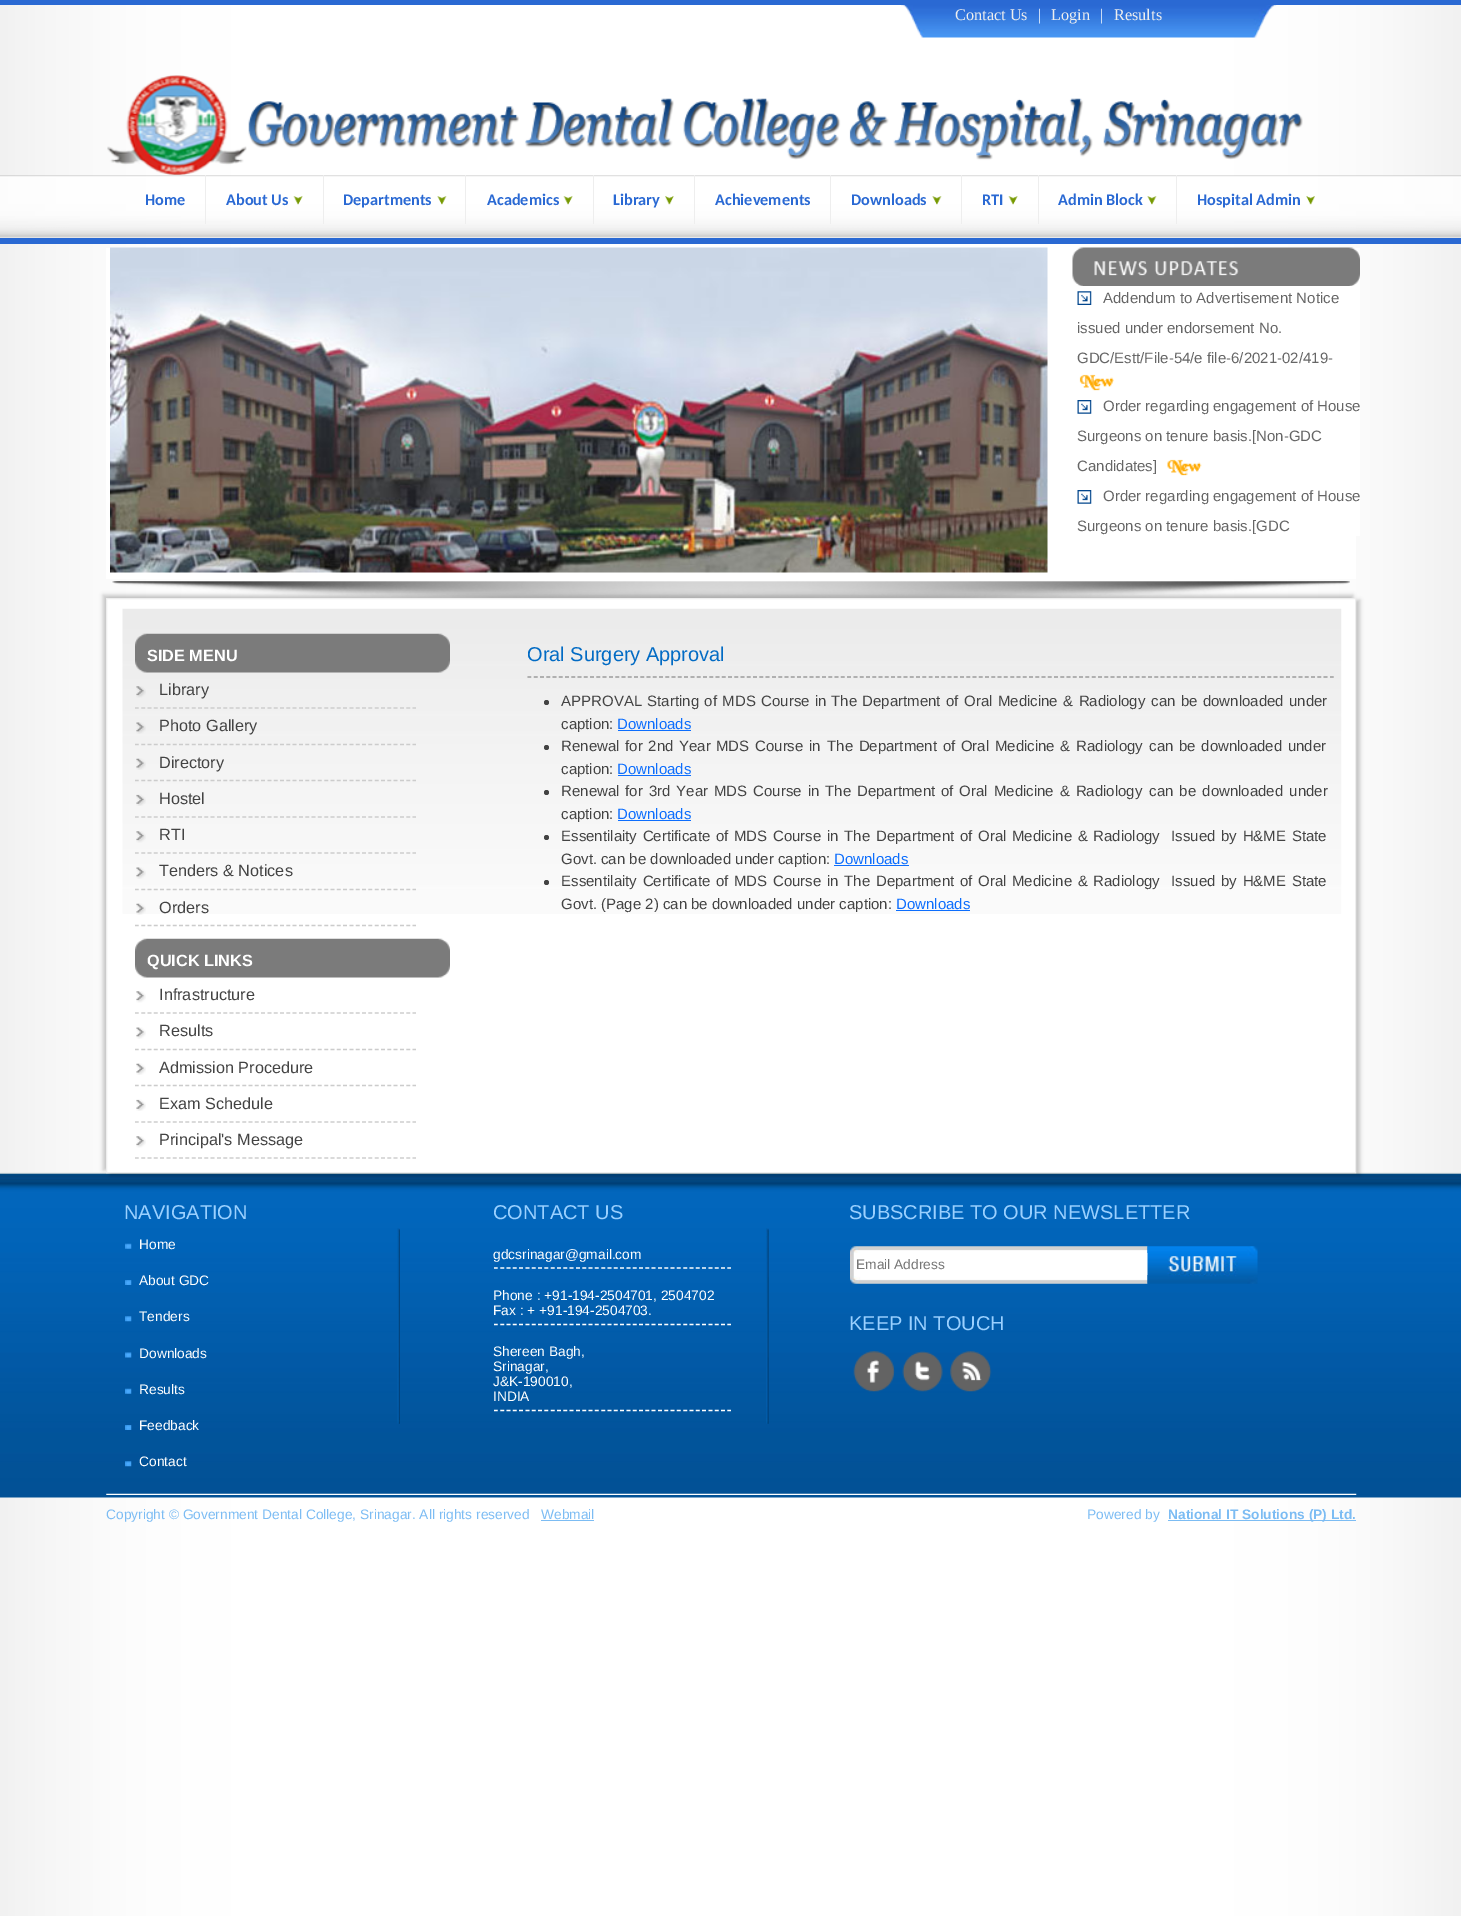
%!PS
<< /PageSize [1461 1916] /PageUsesTransparency true >> setpagedevice
/m/moveto load def
/l/rlineto load def
/z/closepath load def
/f/fill load def
/s/stroke load def
/q/gsave load def
/Q_/grestore load def
/w/setlinewidth load def
/C { dup -16 bitshift 255 div exch dup -8 bitshift 255 and 255 div exch 255 and 255 div setrgbcolor } def
/F { [ exch dup neg 0 0 3 -1 roll 0 0 ] selectfont } def
/T { moveto show } def
/R { rectfill } def
/A { dup .setfillconstantalpha .setstrokeconstantalpha } def
/O { newpath 0 360 arc closepath } def
/Q { 5 dict begin { /r /h /w /y /x } { exch def } forall
  x r add y moveto x w add y 2 copy h add r arct x w add y h add x 1 index r arct
  x y h add x y r arct x y 2 copy exch w add exch r arct closepath end } def
/S { 12 dict begin { /a /b /q /h /w /y /x } { exch def } forall gsave /was 0 def
  9 -2 -9 { dup b mul 4 div /e exch def 1 sub .425 mul 2.718 exch exp 1 add a .99 .min exch div /now exch def
    1 1 now sub 1 was sub div sub A /was now def
    w h .min e 2 mul add 0 gt { x e sub y e sub w e 2 mul add h e 2 mul add
      q e add b .6 mul add w h .min 2 div e add .min 0 .max Q fill } if } for grestore end } def
/I { 5 dict begin { /h /w /y /x /name } { exch def } forall
  gsave x y translate w h scale
  w h 8 [w 0 0 h 0 0] name (r) file false 3 colorimage grestore end } def
0 .pushpdf14devicefilter
0 1916 translate 1 -1 scale
4 setmiterlimit
16#FFFFFF C
0 0 1461 1916 R
(1.rgb) 0 5 1461 1911 I
(2.rgb) 901 5 376 33 I
16#2A69D3 C
0 0 1461 5 R
/LiberationSerif-Regular 16.25 F
16#EEEEEE C
(Contact Us) 955 20 T
16#FFFFFF C
(|) 1038 20 T
16#EEEEEE C
(Login) 1051 20 T
16#FFFFFF C
(|) 1100 20 T
16#EEEEEE C
(Results) 1114 20 T
(3.rgb) 107 75 1196 100 I
(4.rgb) 0 175 1461 63 I
205 175 1 49 R
/Carlito-Bold 16.25 F
16#2A69D3 C
(Home) 145 205 T
16#EEEEEE C
323 175 1 49 R
16#2A69D3 C
(About Us) 226 205 T
(5.rgb) 293 196 10 9 I
16#EEEEEE C
465 175 1 49 R
16#2A69D3 C
(Departments) 343 205 T
(6.rgb) 437 196 10 9 I
16#EEEEEE C
593 175 1 49 R
16#2A69D3 C
(Academics) 487 205 T
(5.rgb) 563 196 10 9 I
16#EEEEEE C
694 175 1 49 R
16#2A69D3 C
(Library) 613 205 T
(7.rgb) 665 196 9 9 I
16#EEEEEE C
830 175 1 49 R
16#2A69D3 C
(Achievements) 715 205 T
16#EEEEEE C
961 175 1 49 R
16#2A69D3 C
(Downloads) 851 205 T
(8.rgb) 932 196 10 9 I
16#EEEEEE C
1038 175 1 49 R
16#2A69D3 C
(RTI) 982 205 T
(5.rgb) 1008 196 10 9 I
16#EEEEEE C
1176 175 1 49 R
16#2A69D3 C
(Admin Block) 1058 205 T
(6.rgb) 1147 196 10 9 I
(Hospital Admin) 1197 205 T
(9.rgb) 1306 196 9 9 I
0 238 1461 6 R
16#FFFFFF C
106 248 1250 331 R
(10.rgb) 110 247 938 326 I
1356 248 4 288 R
(11.rgb) 1072 247 288 39 I
(12.rgb) 1077 291 15 14 I
/LiberationSans-Regular 15 F
16#666666 C
(Addendum to Advertisement Notice) 1103 303 T
(issued under endorsement No.) 1077 333 T
(GDC/Estt/File-54/e file-6/2021-02/419-) 1077 363 T
(13.rgb) 1079 374 35 17 I
(14.rgb) 1077 400 15 14 I
(Order regarding engagement of House) 1103 411 T
(Surgeons on tenure basis.[Non-GDC) 1077 441 T
(Candidates]) 1077 471 T
(15.rgb) 1167 459 35 17 I
(14.rgb) 1077 490 15 14 I
(Order regarding engagement of House) 1103 501 T
(Surgeons on tenure basis.[GDC) 1077 531 T
(16.rgb) 112 581 1238 17 I
(31.rgb) 0 1172 1461 326 I
16#000000 C
103 595 1250 575 0 2 .2 S
110 600 1250 575 0 2 .2 S
16#FFFFFF C
106.5 598.5 m 1249 0 l 0 574 l -1249 0 l z q f Q_
16#EEEEEE C
s
(17.rgb) 122 608 1220 306 I
(18.rgb) 135 633 315 40 I
/LiberationSans-Bold 16.25 F
16#FFFFFF C
(SIDE MENU) 147 661 T
(19.rgb) 136 686 10 12 I
16#CCCCCC C
1.2 w
[3.75 2.56] 0 setdash
135 708 m 281 0 l s
/LiberationSans-Regular 16.25 F
16#434343 C
(Library) 159 695 T
(20.rgb) 136 722 10 12 I
16#CCCCCC C
135 744.5 m 281 0 l s
16#434343 C
(Photo Gallery) 159 731 T
(21.rgb) 136 758 10 12 I
16#CCCCCC C
135 780.5 m 281 0 l s
16#434343 C
(Directory) 159 768 T
(22.rgb) 136 794 10 12 I
16#CCCCCC C
135 817 m 281 0 l s
16#434343 C
(Hostel) 159 804 T
(23.rgb) 136 831 10 12 I
16#CCCCCC C
135 853 m 281 0 l s
16#434343 C
(RTI) 159 840 T
(24.rgb) 136 867 10 12 I
16#CCCCCC C
135 889.5 m 281 0 l s
16#434343 C
(Tenders & Notices) 159 876 T
(25.rgb) 136 903 10 12 I
16#CCCCCC C
135 925.5 m 281 0 l s
16#434343 C
(Orders) 159 913 T
(26.rgb) 135 938 315 40 I
/LiberationSans-Bold 16.25 F
16#FFFFFF C
(QUICK LINKS) 147 966 T
(27.rgb) 136 991 10 12 I
16#CCCCCC C
135 1013 m 281 0 l s
/LiberationSans-Regular 16.25 F
16#434343 C
(Infrastructure) 159 1000 T
(28.rgb) 136 1027 10 12 I
16#CCCCCC C
135 1049.5 m 281 0 l s
16#434343 C
(Results) 159 1036 T
(29.rgb) 136 1063 10 12 I
16#CCCCCC C
135 1085.5 m 281 0 l s
16#434343 C
(Admission Procedure) 159 1073 T
(30.rgb) 136 1099 10 12 I
16#CCCCCC C
135 1122 m 281 0 l s
16#434343 C
(Exam Schedule) 159 1109 T
(27.rgb) 136 1136 10 12 I
16#CCCCCC C
135 1158 m 281 0 l s
16#434343 C
(Principal's Message) 159 1145 T
16#999999 C
[3.75 2.52] 0 setdash
527.5 677 m 806.5 0 l s
/LiberationSans-Regular 20 F
16#026BC4 C
(Oral Surgery Approval) 527 661 T
16#434343 C
546.5 702.5 2.5 O f
/LiberationSans-Regular 15 F
561 706 m 1.25 0 32 (APPROVAL Starting of MDS Course in) widthshow
831 706 m 1.25 0 32 (The Department of Oral Medicine & Radiology) widthshow
1151 706 m 1.25 0 32 (can be downloaded under) widthshow
(caption:) 561 729 T
16#0D6EFD C
(Downloads) 617 729 T
618 730 73 1 R
16#434343 C
546.5 747.5 2.5 O f
561 751 m 1.5 0 32 (Renewal for 2nd Year) widthshow
716 751 m 1.5 0 32 (MDS Course in) widthshow
827 751 m 1.5 0 32 (The Department of Oral Medicine & Radiology) widthshow
1149 751 m 1.5 0 32 (can be downloaded under) widthshow
(caption:) 561 774 T
16#0D6EFD C
(Downloads) 617 774 T
618 775 73 1 R
16#434343 C
546.5 792.5 2.5 O f
561 796 m 1.75 0 32 (Renewal for 3rd Year) widthshow
714 796 m 1.75 0 32 (MDS Course in) widthshow
825 796 m 1.75 0 32 (The Department of Oral Medicine & Radiology) widthshow
1149 796 m 2 0 32 (can be downloaded under) widthshow
(caption:) 561 819 T
16#0D6EFD C
(Downloads) 617 819 T
618 820 73 1 R
16#434343 C
546.5 837.5 2.5 O f
561 841 m 1.5 0 32 (Essentilaity Certificate of MDS Course in The Department of Oral Medicine & Radiology  Issued by H&ME State) widthshow
(Govt. can be downloaded under caption:) 561 864 T
16#0D6EFD C
(Downloads) 834 864 T
834 865 75 1 R
16#434343 C
546.5 882.5 2.5 O f
561 886 m 1.5 0 32 (Essentilaity Certificate of MDS Course in The Department of Oral Medicine & Radiology  Issued by H&ME State) widthshow
(Govt. \(Page 2\) can be downloaded under caption:) 561 909 T
16#0D6EFD C
(Downloads) 896 909 T
896 910 74 1 R
/LiberationSans-Regular 20 F
16#9AD0FF C
(NAVIGATION) 124 1219 T
(32.rgb) 397 1228 3 196 I
(33.rgb) 125 1243 7 6 I
/LiberationSans-Regular 13.75 F
16#FFFFFF C
(Home) 139 1249 T
(34.rgb) 125 1280 7 5 I
(About GDC) 139 1285 T
(35.rgb) 125 1316 7 6 I
(Tenders) 139 1321 T
(36.rgb) 125 1352 7 6 I
(Downloads) 139 1358 T
(37.rgb) 125 1388 7 6 I
(Results) 139 1394 T
(38.rgb) 125 1425 7 5 I
(Feedback) 139 1430 T
(39.rgb) 125 1461 7 6 I
(Contact) 139 1466 T
/LiberationSans-Regular 20 F
16#9AD0FF C
(CONTACT US) 493 1219 T
(40.rgb) 766 1228 3 196 I
16#FFFFFF C
[3.75 2.56] 0 setdash
494 1268 m 237 0 l s
/LiberationSans-Regular 13.75 F
(gdcsrinagar@gmail.com) 493 1259 T
494 1324.5 m 237 0 l s
(Phone : +91-194-2504701, 2504702) 493 1300 T
(Fax : + +91-194-2504703.) 493 1315 T
494 1410.5 m 237 0 l s
(Shereen Bagh,) 493 1356 T
(Srinagar,) 493 1371 T
(J&K-190010,) 493 1386 T
(INDIA) 493 1401 T
/LiberationSans-Regular 20 F
16#9AD0FF C
(SUBSCRIBE TO OUR NEWSLETTER) 849 1219 T
(41.rgb) 850 1246 298 38 I
16#FFFFFF C
854 1253 294 22 R
/LiberationSans-Regular 13.75 F
16#757575 C
(Email Address) 856 1269 T
(42.rgb) 1147 1246 111 38 I
/LiberationSans-Regular 20 F
16#9AD0FF C
(KEEP IN TOUCH) 849 1330 T
(43.rgb) 853 1351 42 41 I
(44.rgb) 902 1351 41 41 I
(45.rgb) 950 1351 42 41 I
(46.rgb) 106 1493 1251 2 I
/LiberationSans-Regular 13.75 F
16#7CBCF3 C
(Copyright © Government Dental College, Srinagar. All rights reserved) 106 1519 T
(Webmail) 541 1519 T
541 1520 53 1 R
(Powered by) 1087 1519 T
1168 1520 188 1 R
/LiberationSans-Bold 13.75 F
(National IT Solutions \(P\) Ltd.) 1168 1519 T
.poppdf14devicefilter showpage
